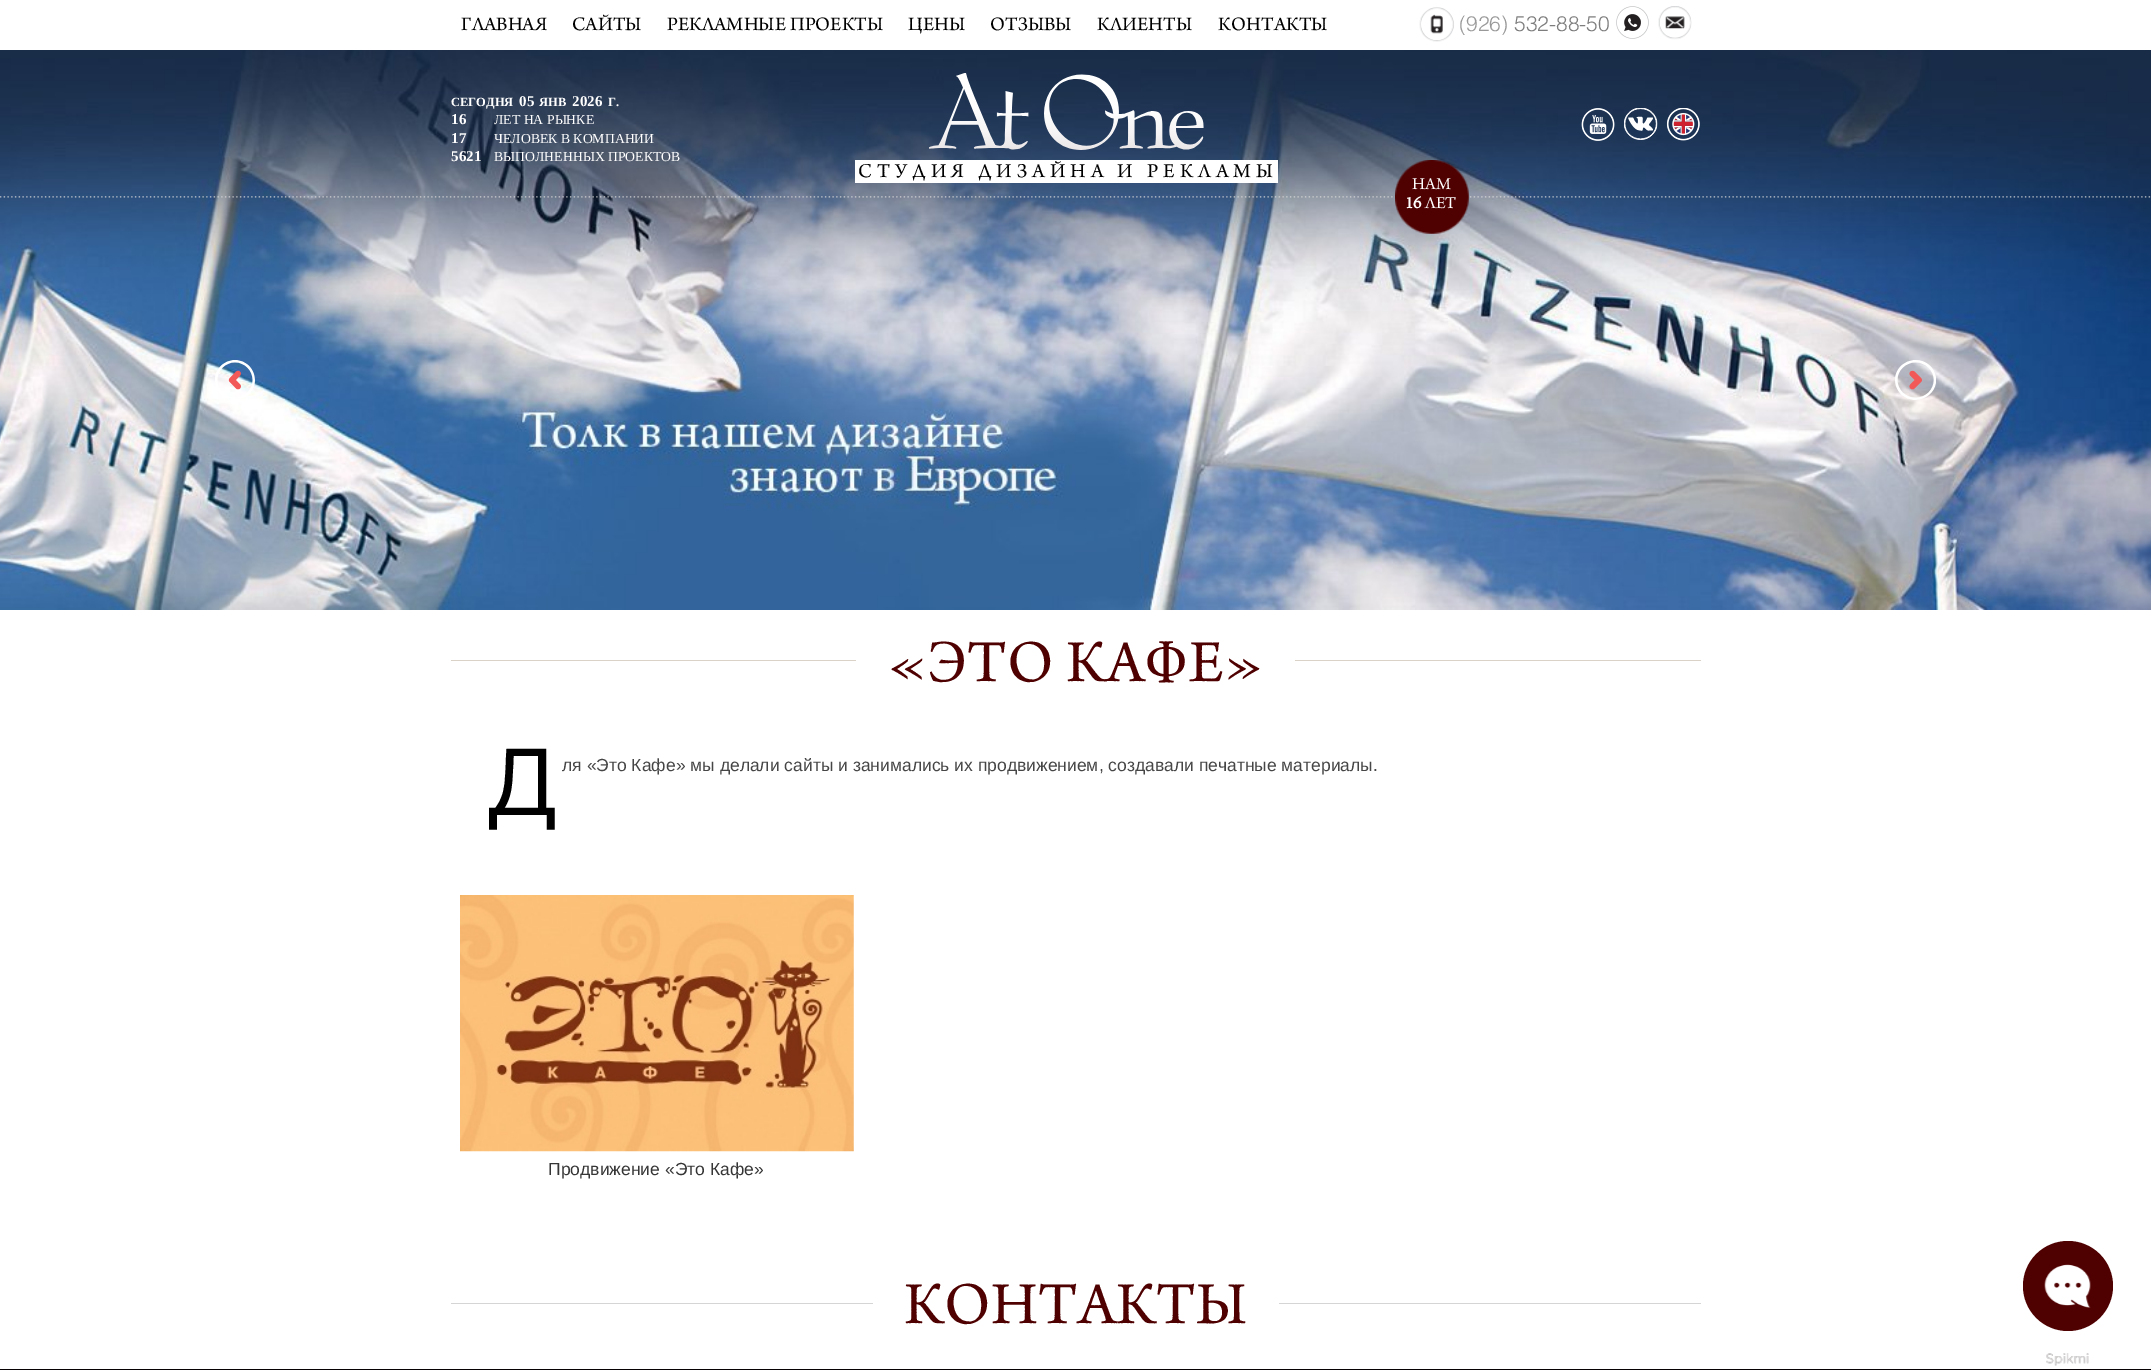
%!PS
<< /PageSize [2151 1370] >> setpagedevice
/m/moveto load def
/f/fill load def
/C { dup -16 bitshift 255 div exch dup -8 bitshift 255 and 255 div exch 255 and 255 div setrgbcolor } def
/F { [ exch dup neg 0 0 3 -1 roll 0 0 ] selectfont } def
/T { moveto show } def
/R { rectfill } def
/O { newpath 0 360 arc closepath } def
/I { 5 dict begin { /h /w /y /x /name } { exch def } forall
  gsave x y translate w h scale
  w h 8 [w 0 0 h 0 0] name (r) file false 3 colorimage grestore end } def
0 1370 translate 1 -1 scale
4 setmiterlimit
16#FFFFFF C
0 0 2151 1370 R
/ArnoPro-Regular 20 F
16#000000 C
(ГЛАВНАЯ) 461 30 T
(САЙТЫ) 572 30 T
(РЕКЛАМНЫЕ ПРОЕКТЫ) 667 30 T
(ЦЕНЫ) 908 30 T
(ОТЗЫВЫ) 990 30 T
(КЛИЕНТЫ) 1097 30 T
(КОНТАКТЫ) 1218 30 T
(1.rgb) 1419 7 35 35 I
/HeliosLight-Light 21 F
16#999999 C
(\(926\)) 1459 31 T
16#7D7D7D C
(532-88-50) 1514 31 T
(2.rgb) 1616 6 33 33 I
(3.rgb) 1658 6 34 34 I
(10.rgb) 0 50 2151 560 I
(4.rgb) 0 196 2151 2 I
/LiberationSerif-Bold 12.5 F
16#FFFFFF C
(СЕГОДНЯ) 451 106 T
/LiberationSerif-Bold 15 F
(05) 519 106 T
/LiberationSerif-Bold 12.5 F
(ЯНВ) 539 106 T
/LiberationSerif-Bold 15 F
(2026) 572 106 T
/LiberationSerif-Bold 12.5 F
(Г.) 608 106 T
/LiberationSerif-Bold 15 F
(16) 451 124 T
/LiberationSerif-Regular 13.75 F
(ЛЕТ НА РЫНКЕ) 494 124 T
/LiberationSerif-Bold 15 F
(17) 451 143 T
/LiberationSerif-Regular 13.75 F
(ЧЕЛОВЕК В КОМПАНИИ) 494 143 T
/LiberationSerif-Bold 15 F
(5621) 451 161 T
/LiberationSerif-Regular 13.75 F
(ВЫПОЛНЕННЫХ ПРОЕКТОВ) 494 161 T
(5.rgb) 1581 108 34 33 I
(6.rgb) 1624 108 34 32 I
(7.rgb) 1666 108 34 33 I
(8.rgb) 929 73 275 77 I
855 160 423 23 R
/ArnoPro-Regular 20.7 F
16#000000 C
858 177 m 5 0 (СТУДИЯ ДИЗАЙНА И РЕКЛАМЫ) ashow
(9.rgb) 1395 160 74 74 I
/ArnoPro-Regular 17.5 F
16#FFFFFF C
(НАМ) 1412 189 T
/ArnoPro-Bold 17.5 F
(16) 1405 208 T
/ArnoPro-Regular 17.5 F
(ЛЕТ) 1425 208 T
(11.rgb) 215 360 40 38 I
(12.rgb) 1895 360 41 40 I
16#DAD1C7 C
451 660 1250 1 R
16#FFFFFF C
856 660 439 1 R
/ArnoPro-Regular 62.5 F
16#4F0000 C
(«ЭТО КАФЕ») 887 681 T
/NotoSans-Regular 93 F
16#000000 C
(Д) 488 815 T
/LiberationSans-Regular 17.5 F
16#464646 C
(ля «Это Кафе» мы делали сайты и занимались их продвижением, создавали печатные материалы.) 562 771 T
(13.rgb) 460 895 394 257 I
16#363636 C
(Продвижение «Это Кафе») 548 1175 T
16#D5D5D5 C
451 1303 1250 1 R
16#FFFFFF C
873 1303 406 1 R
/ArnoPro-Regular 62.5 F
16#4F0000 C
(КОНТАКТЫ) 904 1323 T
16#070103 C
0 1369 2151 1 R
16#4F0000 C
2068 1286 45 O f
(14.rgb) 2044 1264 47 44 I
(15.rgb) 2046 1353 43 13 I
showpage
